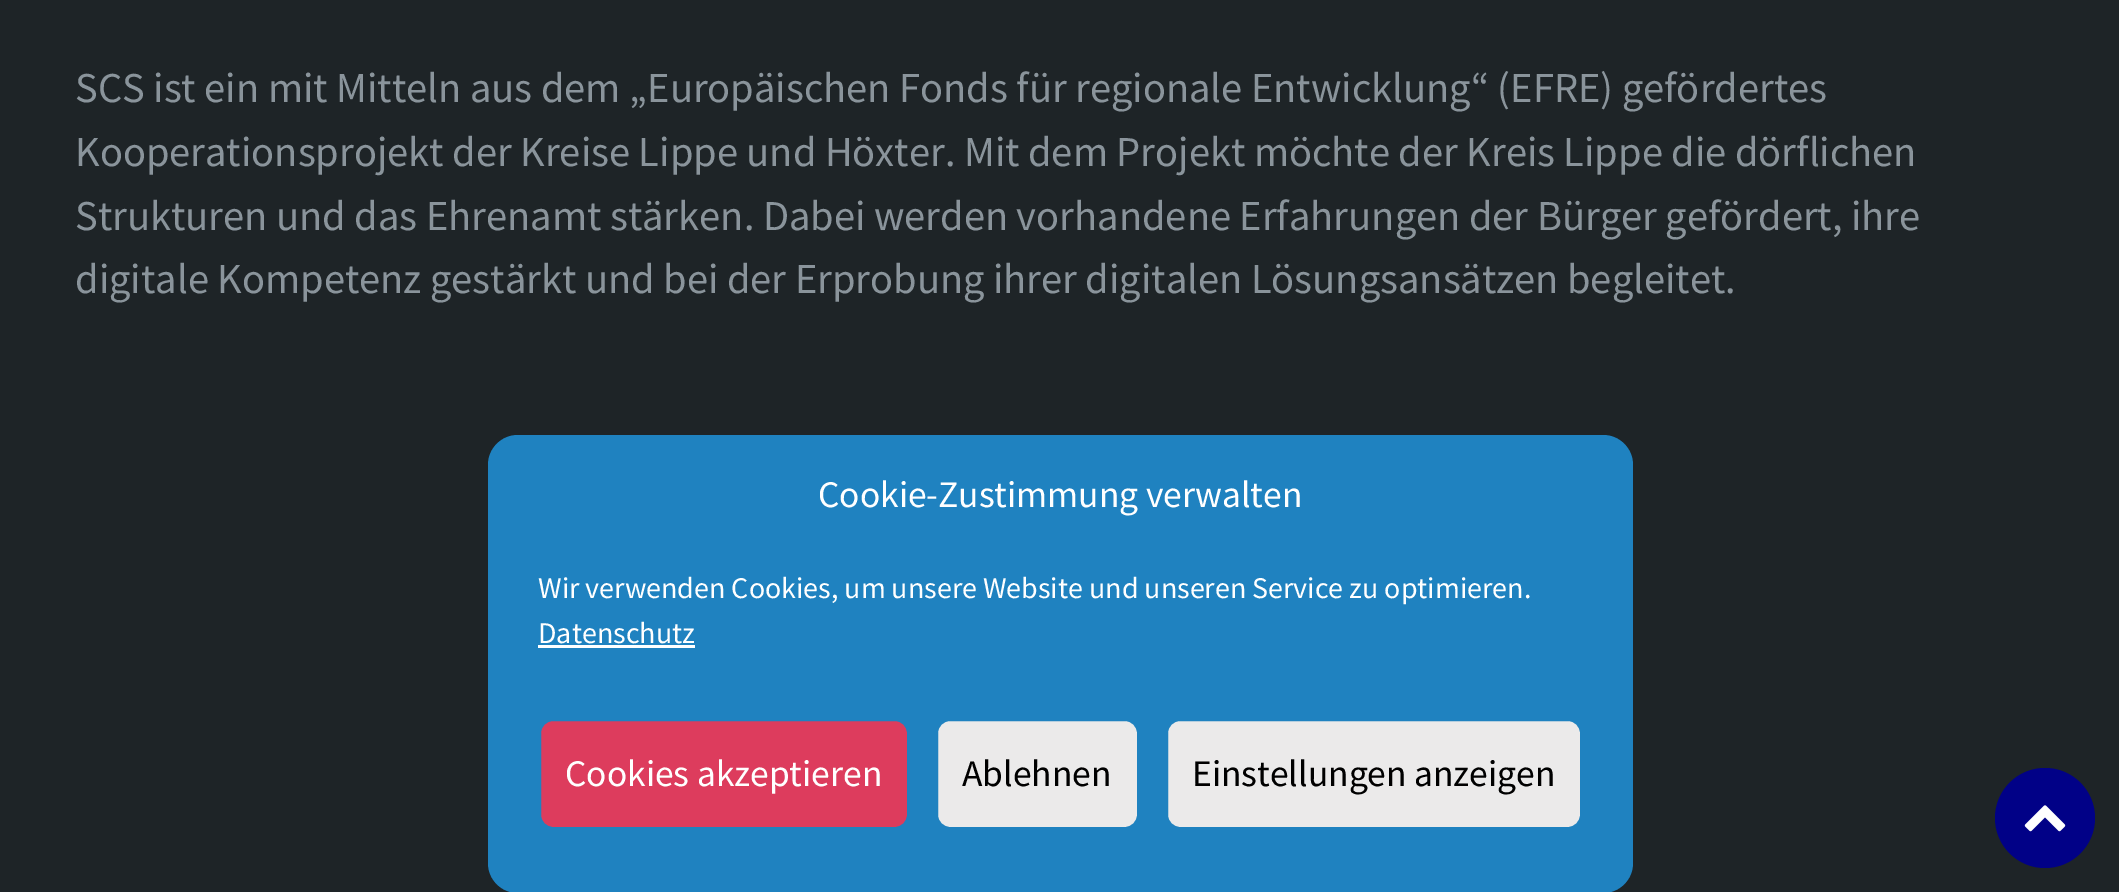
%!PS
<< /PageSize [2119 892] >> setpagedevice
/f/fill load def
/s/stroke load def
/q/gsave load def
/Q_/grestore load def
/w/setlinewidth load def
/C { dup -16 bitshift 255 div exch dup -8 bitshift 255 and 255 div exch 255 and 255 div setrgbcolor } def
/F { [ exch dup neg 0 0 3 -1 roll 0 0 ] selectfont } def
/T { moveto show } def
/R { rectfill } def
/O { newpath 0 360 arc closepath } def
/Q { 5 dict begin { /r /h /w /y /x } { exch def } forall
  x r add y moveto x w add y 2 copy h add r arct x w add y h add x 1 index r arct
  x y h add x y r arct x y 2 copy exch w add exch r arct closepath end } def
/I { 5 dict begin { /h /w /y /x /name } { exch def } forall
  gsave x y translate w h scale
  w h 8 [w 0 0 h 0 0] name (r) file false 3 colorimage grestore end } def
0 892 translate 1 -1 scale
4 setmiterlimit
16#1E2427 C
0 0 2119 892 R
/SourceSansPro-Regular 42.5 F
16#8A949B C
(SCS ist ein mit Mitteln aus dem „Europäischen Fonds für regionale Entwicklung“ \(EFRE\) gefördertes) 75 102 T
(Kooperationsprojekt der Kreise Lippe und Höxter. Mit dem Projekt möchte der Kreis Lippe die dörflichen) 75 166 T
(Strukturen und das Ehrenamt stärken. Dabei werden vorhandene Erfahrungen der Bürger gefördert, ihre) 75 230 T
(digitale Kompetenz gestärkt und bei der Erprobung ihrer digitalen Lösungsansätzen begleitet.) 75 293 T
16#010187 C
2045 818 50 O f
(1.rgb) 2024 805 42 27 I
16#1F82C0 C
488 435 1145 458 30 Q f
/SourceSansPro-Regular 37.5 F
16#FFFFFF C
(Cookie-Zustimmung verwalten) 818 507 T
/SourceSansPro-Regular 30 F
(Wir verwenden Cookies, um unsere Website und unseren Service zu optimieren.) 538 598 T
(Datenschutz) 538 643 T
538 645 157 3 R
16#DD3C5D C
539.5 719.5 369 109 13.5 Q q f Q_
16#1F82C0 C
3 w
s
/SourceSansPro-Regular 37.5 F
16#FFFFFF C
(Cookies akzeptieren) 565 786 T
16#EBEAEA C
936.5 719.5 202 109 13.5 Q q f Q_
16#1F82C0 C
s
16#000000 C
(Ablehnen) 962 786 T
16#EBEAEA C
1166.5 719.5 415 109 13.5 Q q f Q_
16#1F82C0 C
s
16#000000 C
(Einstellungen anzeigen) 1192 786 T
showpage
